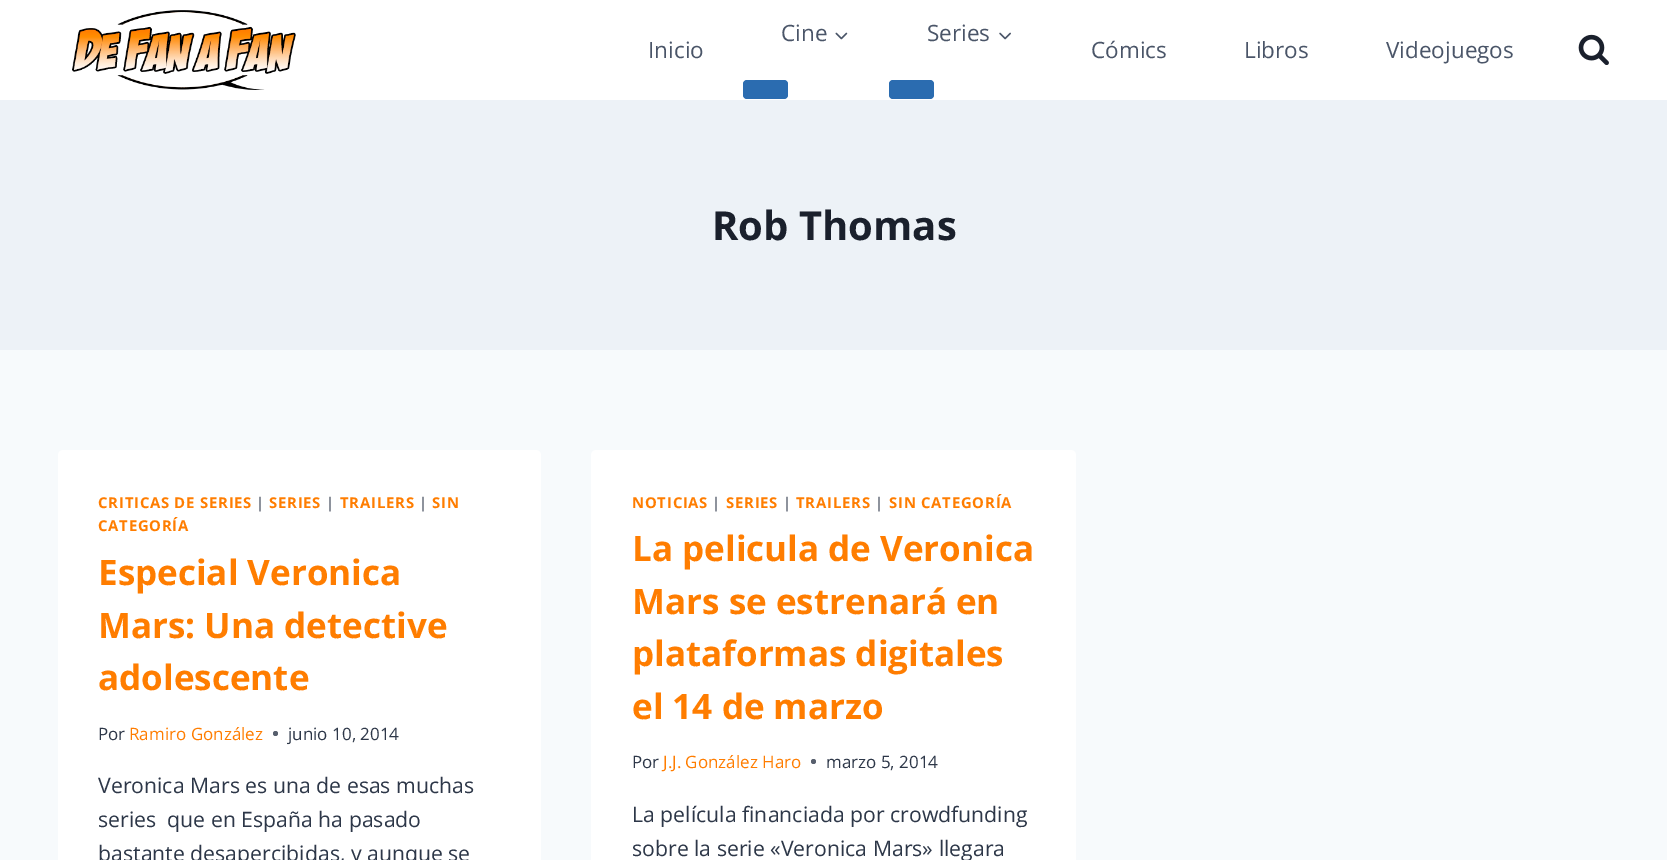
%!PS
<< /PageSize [1667 860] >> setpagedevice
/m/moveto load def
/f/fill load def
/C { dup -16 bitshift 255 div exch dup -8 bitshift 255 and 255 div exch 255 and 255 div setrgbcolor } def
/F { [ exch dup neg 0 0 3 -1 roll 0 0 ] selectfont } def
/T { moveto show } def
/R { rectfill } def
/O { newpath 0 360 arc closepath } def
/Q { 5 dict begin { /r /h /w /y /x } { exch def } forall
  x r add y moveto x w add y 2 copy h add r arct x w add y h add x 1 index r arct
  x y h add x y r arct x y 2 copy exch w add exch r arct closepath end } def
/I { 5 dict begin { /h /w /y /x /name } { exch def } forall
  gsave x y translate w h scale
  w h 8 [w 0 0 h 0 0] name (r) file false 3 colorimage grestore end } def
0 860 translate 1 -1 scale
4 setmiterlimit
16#F7FAFC C
0 0 1667 860 R
16#FFFFFF C
0 0 1667 100 R
(1.rgb) 72 10 224 80 I
/OpenSans-Regular 22.5 F
16#4A5568 C
(Cine) 781 41 T
(2.rgb) 835 32 13 8 I
16#2B6CB0 C
743 80 45 19 4 Q f
16#4A5568 C
(Series) 927 41 T
(3.rgb) 999 32 12 8 I
16#2B6CB0 C
889 80 45 19 4 Q f
16#4A5568 C
(Inicio) 648 58 T
(Cómics) 1091 58 T
(Libros) 1244 58 T
(Videojuegos) 1386 58 T
(4.rgb) 1578 34 31 31 I
16#EDF2F7 C
0 100 1667 250 R
/OpenSans-Bold 40 F
16#1A202C C
(Rob Thomas) 712 240 T
16#FFFFFF C
58 450 483 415 5 Q f
/OpenSans-Bold 14.9 F
16#FF7D00 C
98 508 m .75 0 (CRITICAS DE SERIES) ashow
/OpenSans-Regular 14.9 F
16#2D3748 C
256 508 m .75 0 (|) ashow
/OpenSans-Bold 14.9 F
16#FF7D00 C
269 508 m .75 0 (SERIES) ashow
/OpenSans-Regular 14.9 F
16#2D3748 C
326 508 m .75 0 (|) ashow
/OpenSans-Bold 14.9 F
16#FF7D00 C
340 508 m .75 0 (TRAILERS) ashow
/OpenSans-Regular 14.9 F
16#2D3748 C
419 508 m .75 0 (|) ashow
/OpenSans-Bold 14.9 F
16#FF7D00 C
432 508 m .75 0 (SIN) ashow
98 531 m .75 0 (CATEGORÍA) ashow
/OpenSans-Bold 35 F
(Especial Veronica) 98 585 T
(Mars: Una detective) 98 638 T
(adolescente) 98 690 T
/OpenSans-Regular 17 F
16#2D3748 C
(Por) 98 740 T
16#FF7D00 C
(Ramiro González) 129 740 T
16#575F6D C
275.5 733.5 2.5 O f
16#2D3748 C
(junio 10, 2014) 288 740 T
/OpenSans-Regular 21.25 F
(Veronica Mars es una de esas muchas) 98 793 T
(series  que en España ha pasado) 98 827 T
(bastante desapercibidas, y aunque se) 98 861 T
16#FFFFFF C
591 450 485 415 5 Q f
/OpenSans-Bold 14.9 F
16#FF7D00 C
632 508 m .75 0 (NOTICIAS) ashow
/OpenSans-Regular 14.9 F
16#2D3748 C
712 508 m .75 0 (|) ashow
/OpenSans-Bold 14.9 F
16#FF7D00 C
726 508 m .75 0 (SERIES) ashow
/OpenSans-Regular 14.9 F
16#2D3748 C
783 508 m .75 0 (|) ashow
/OpenSans-Bold 14.9 F
16#FF7D00 C
796 508 m .75 0 (TRAILERS) ashow
/OpenSans-Regular 14.9 F
16#2D3748 C
875 508 m .75 0 (|) ashow
/OpenSans-Bold 14.9 F
16#FF7D00 C
889 508 m .75 0 (SIN CATEGORÍA) ashow
/OpenSans-Bold 35 F
(La pelicula de Veronica) 632 561 T
(Mars se estrenará en) 632 614 T
(plataformas digitales) 632 666 T
(el 14 de marzo) 632 719 T
/OpenSans-Regular 17 F
16#2D3748 C
(Por) 632 768 T
16#FF7D00 C
(J.J. González Haro) 663 768 T
16#575F6D C
813.5 761.5 2.5 O f
16#2D3748 C
(marzo 5, 2014) 826 768 T
/OpenSans-Regular 21.25 F
(La película financiada por crowdfunding) 632 822 T
(sobre la serie «Veronica Mars» llegara) 632 856 T
showpage
